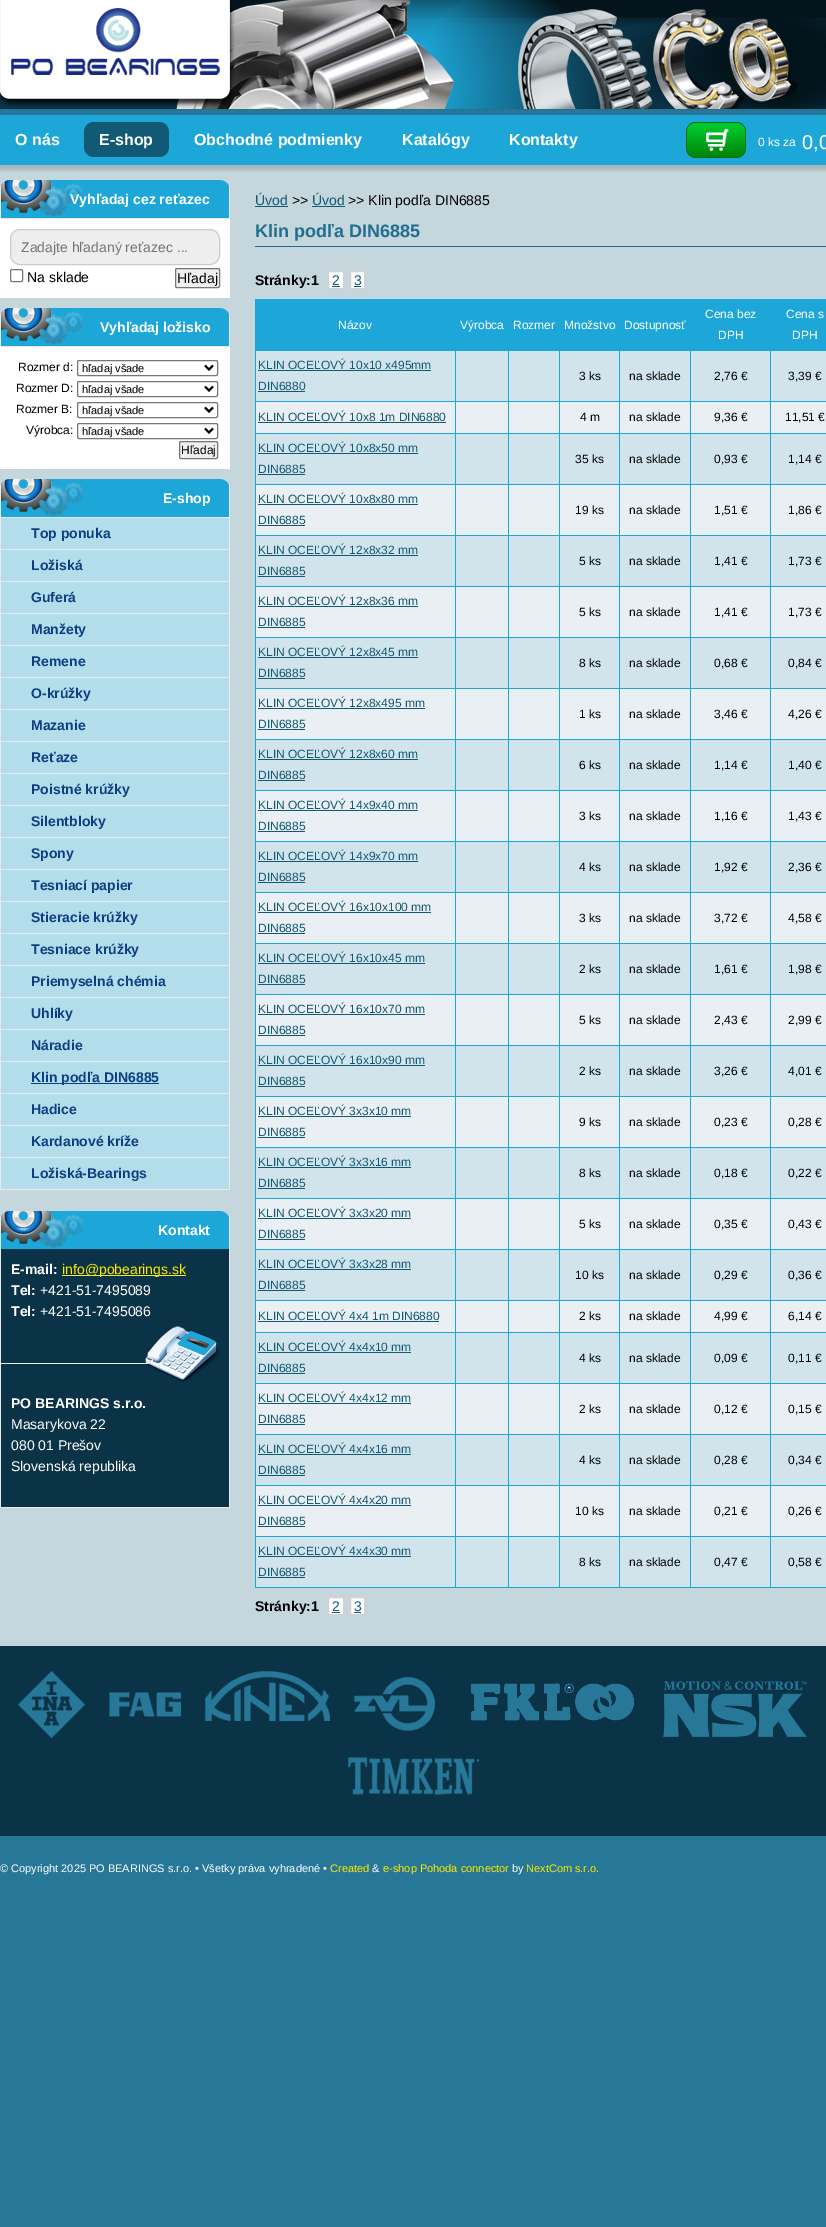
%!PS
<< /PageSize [826 2227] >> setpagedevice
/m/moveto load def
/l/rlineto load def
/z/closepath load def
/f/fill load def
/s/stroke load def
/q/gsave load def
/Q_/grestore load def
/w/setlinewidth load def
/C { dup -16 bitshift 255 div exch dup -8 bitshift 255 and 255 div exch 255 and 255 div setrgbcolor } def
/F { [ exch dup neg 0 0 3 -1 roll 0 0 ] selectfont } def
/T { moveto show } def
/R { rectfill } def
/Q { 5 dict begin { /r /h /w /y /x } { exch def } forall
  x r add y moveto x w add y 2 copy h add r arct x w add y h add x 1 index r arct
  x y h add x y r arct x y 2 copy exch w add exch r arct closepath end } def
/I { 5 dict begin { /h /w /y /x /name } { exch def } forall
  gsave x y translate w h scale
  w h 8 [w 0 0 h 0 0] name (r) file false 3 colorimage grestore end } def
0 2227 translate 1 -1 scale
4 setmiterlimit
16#277798 C
0 0 826 2227 R
16#C5D6DD C
0 172 826 1474 R
(1.rgb) 0 114 826 58 I
(2.rgb) 0 0 826 114 I
/LiberationSans-Bold 16 F
16#FFFFFF C
(O nás) 15 145 T
16#125976 C
84 122 85 35 10 Q f
16#FFFFFF C
(E-shop) 99 145 T
(Obchodné podmienky) 194 145 T
(Katalógy) 402 145 T
(Kontakty) 509 145 T
(3.rgb) 686 122 60 36 I
/LiberationSans-Regular 12 F
(0 ks za) 758 146 T
/LiberationSans-Regular 20 F
(0,0) 802 149 T
(4.rgb) 0 180 230 38 I
16#E9E9E9 C
0 218 230 1 R
/LiberationSans-Bold 14 F
16#FFFFFF C
(Vyhľadaj cez reťazec) 70 204 T
0 219 230 79 R
16#EEEEEE C
10.5 229.5 209 35 9.5 Q q f Q_
16#CCCCCC C
s
/LiberationSans-Regular 14 F
16#757575 C
(Zadajte hľadaný reťazec ...) 21 252 T
16#767676 C
10.5 269.5 12 12 1.5 Q s
16#000000 C
(Na sklade) 27 282 T
16#EFEFEF C
175.5 268.5 44 19 1.5 Q q f Q_
16#767676 C
s
16#000000 C
(Hľadaj) 177 283 T
(4.rgb) 0 308 230 38 I
16#E9E9E9 C
0 346 230 1 R
/LiberationSans-Bold 14 F
16#FFFFFF C
(Vyhľadaj ložisko) 100 332 T
0 347 230 122 R
/LiberationSans-Regular 12 F
16#000000 C
(Rozmer d:) 18 371 T
16#767676 C
77.5 360.5 140 15 1.5 Q s
16#000000 C
2 w
205 365.5 m 4 4 l 4 -4 l s
/LiberationSans-Regular 11 F
(hľadaj všade) 82 372 T
/LiberationSans-Regular 12 F
(Rozmer D:) 16 392 T
16#767676 C
1 w
77.5 381.5 140 15 1.5 Q s
16#000000 C
2 w
205 386.5 m 4 4 l 4 -4 l s
/LiberationSans-Regular 11 F
(hľadaj všade) 82 393 T
/LiberationSans-Regular 12 F
(Rozmer B:) 16 413 T
16#767676 C
1 w
77.5 402.5 140 15 1.5 Q s
16#000000 C
2 w
205 407.5 m 4 4 l 4 -4 l s
/LiberationSans-Regular 11 F
(hľadaj všade) 82 414 T
/LiberationSans-Regular 12 F
(Výrobca:) 26 434 T
16#767676 C
1 w
77.5 423.5 140 15 1.5 Q s
16#000000 C
2 w
205 428.5 m 4 4 l 4 -4 l s
/LiberationSans-Regular 11 F
(hľadaj všade) 82 435 T
16#EFEFEF C
179.5 441.5 38 17 1.5 Q q f Q_
16#767676 C
1 w
s
/LiberationSans-Regular 12 F
16#000000 C
(Hľadaj) 181 454 T
(4.rgb) 0 479 230 38 I
16#E9E9E9 C
0 517 230 1 R
/LiberationSans-Bold 14 F
16#FFFFFF C
(E-shop) 163 503 T
16#B4DDEC C
1 518 228 31 R
16#E9E9E9 C
229 518 1 672 R
0 549 230 1 R
0 518 1 32 R
16#0C3F82 C
(Top ponuka) 31 538 T
16#B4DDEC C
1 550 228 639 R
16#E9E9E9 C
0 581 230 1 R
0 550 1 32 R
16#0C3F82 C
(Ložiská) 31 570 T
16#E9E9E9 C
0 613 230 1 R
0 582 1 32 R
16#0C3F82 C
(Guferá) 31 602 T
16#E9E9E9 C
0 645 230 1 R
0 614 1 32 R
16#0C3F82 C
(Manžety) 31 634 T
16#E9E9E9 C
0 677 230 1 R
0 646 1 32 R
16#0C3F82 C
(Remene) 31 666 T
16#E9E9E9 C
0 709 230 1 R
0 678 1 32 R
16#0C3F82 C
(O-krúžky) 31 698 T
16#E9E9E9 C
0 741 230 1 R
0 710 1 32 R
16#0C3F82 C
(Mazanie) 31 730 T
16#E9E9E9 C
0 773 230 1 R
0 742 1 32 R
16#0C3F82 C
(Reťaze) 31 762 T
16#E9E9E9 C
0 805 230 1 R
0 774 1 32 R
16#0C3F82 C
(Poistné krúžky) 31 794 T
16#E9E9E9 C
0 837 230 1 R
0 806 1 32 R
16#0C3F82 C
(Silentbloky) 31 826 T
16#E9E9E9 C
0 869 230 1 R
0 838 1 32 R
16#0C3F82 C
(Spony) 31 858 T
16#E9E9E9 C
0 901 230 1 R
0 870 1 32 R
16#0C3F82 C
(Tesniací papier) 31 890 T
16#E9E9E9 C
0 933 230 1 R
0 902 1 32 R
16#0C3F82 C
(Stieracie krúžky) 31 922 T
16#E9E9E9 C
0 965 230 1 R
0 934 1 32 R
16#0C3F82 C
(Tesniace krúžky) 31 954 T
16#E9E9E9 C
0 997 230 1 R
0 966 1 32 R
16#0C3F82 C
(Priemyselná chémia) 31 986 T
16#E9E9E9 C
0 1029 230 1 R
0 998 1 32 R
16#0C3F82 C
(Uhlíky) 31 1018 T
16#E9E9E9 C
0 1061 230 1 R
0 1030 1 32 R
16#0C3F82 C
(Náradie) 31 1050 T
16#E9E9E9 C
0 1093 230 1 R
0 1062 1 32 R
16#0C3F82 C
31 1083 128 1 R
(Klin podľa DIN6885) 31 1082 T
16#E9E9E9 C
0 1125 230 1 R
0 1094 1 32 R
16#0C3F82 C
(Hadice) 31 1114 T
16#E9E9E9 C
0 1157 230 1 R
0 1126 1 32 R
16#0C3F82 C
(Kardanové kríže) 31 1146 T
16#E9E9E9 C
0 1189 230 1 R
0 1158 1 32 R
16#0C3F82 C
(Ložiská-Bearings) 31 1178 T
(4.rgb) 0 1211 230 38 I
16#FFFFFF C
(Kontakt) 158 1235 T
16#0A3347 C
1 1249 228 258 R
16#E9E9E9 C
229 1249 1 259 R
0 1507 230 1 R
0 1249 1 259 R
(5.rgb) 1 1326 219 56 I
16#FFFFFF C
(E-mail:) 11 1274 T
16#FFEA00 C
62 1275 124 1 R
/LiberationSans-Regular 14 F
(info@pobearings.sk) 62 1274 T
/LiberationSans-Bold 14 F
16#FFFFFF C
(Tel:) 11 1295 T
/LiberationSans-Regular 14 F
(+421-51-7495089) 40 1295 T
/LiberationSans-Bold 14 F
(Tel:) 11 1316 T
/LiberationSans-Regular 14 F
(+421-51-7495086) 40 1316 T
/LiberationSans-Bold 14 F
(PO BEARINGS s.r.o.) 11 1408 T
/LiberationSans-Regular 14 F
(Masarykova 22) 11 1429 T
(080 01 Prešov) 11 1450 T
(Slovenská republika) 11 1471 T
16#125976 C
(Úvod) 255 205 T
255 206 33 1 R
16#000000 C
(>>) 292 205 T
16#125976 C
(Úvod) 312 205 T
312 206 33 1 R
16#000000 C
(>> Klin podľa DIN6885) 348 205 T
16#216F8F C
255 246 571 1 R
/LiberationSans-Bold 18 F
(Klin podľa DIN6885) 255 237 T
/LiberationSans-Bold 14 F
16#000000 C
(Stránky:1) 255 285 T
16#FFFFFF C
328.5 271.5 m 15 0 l 0 17 l -15 0 l z q f Q_
16#D6CFCB C
s
/LiberationSans-Regular 14 F
16#125976 C
(2) 332 285 T
332 286 8 1 R
16#FFFFFF C
350.5 271.5 m 14 0 l 0 17 l -14 0 l z q f Q_
16#D6CFCB C
s
16#125976 C
(3) 354 285 T
354 286 7 1 R
16#1DA7D8 C
256 300 199 50 R
255 299 571 1 R
455 300 371 51 R
770 401 56 1 R
770 433 56 1 R
770 484 56 1 R
770 535 56 1 R
770 586 56 1 R
770 637 56 1 R
770 688 56 1 R
770 739 56 1 R
770 790 56 1 R
770 841 56 1 R
770 892 56 1 R
770 943 56 1 R
770 994 56 1 R
770 1045 56 1 R
770 1096 56 1 R
770 1147 56 1 R
770 1198 56 1 R
770 1249 56 1 R
770 1300 56 1 R
770 1332 56 1 R
770 1383 56 1 R
770 1434 56 1 R
770 1485 56 1 R
770 1536 56 1 R
770 1587 56 1 R
770 1536 1 52 R
690 1536 81 1 R
770 1485 1 52 R
690 1485 81 1 R
770 1434 1 52 R
690 1434 81 1 R
770 1383 1 52 R
690 1383 81 1 R
770 1332 1 52 R
690 1332 81 1 R
770 1300 1 33 R
690 1300 81 1 R
770 1249 1 52 R
690 1249 81 1 R
770 1198 1 52 R
690 1198 81 1 R
770 1147 1 52 R
690 1147 81 1 R
770 1096 1 52 R
690 1096 81 1 R
770 1045 1 52 R
690 1045 81 1 R
770 994 1 52 R
690 994 81 1 R
770 943 1 52 R
690 943 81 1 R
770 892 1 52 R
690 892 81 1 R
770 841 1 52 R
690 841 81 1 R
770 790 1 52 R
690 790 81 1 R
770 739 1 52 R
690 739 81 1 R
770 688 1 52 R
690 688 81 1 R
770 637 1 52 R
690 637 81 1 R
770 586 1 52 R
690 586 81 1 R
770 535 1 52 R
690 535 81 1 R
770 484 1 52 R
690 484 81 1 R
770 433 1 52 R
690 433 81 1 R
770 401 1 33 R
690 401 81 1 R
690 1587 81 1 R
690 1536 1 52 R
619 1536 72 1 R
690 1485 1 52 R
619 1485 72 1 R
690 1434 1 52 R
619 1434 72 1 R
690 1383 1 52 R
619 1383 72 1 R
690 1332 1 52 R
619 1332 72 1 R
690 1300 1 33 R
619 1300 72 1 R
690 1249 1 52 R
619 1249 72 1 R
690 1198 1 52 R
619 1198 72 1 R
690 1147 1 52 R
619 1147 72 1 R
690 1096 1 52 R
619 1096 72 1 R
690 1045 1 52 R
619 1045 72 1 R
690 994 1 52 R
619 994 72 1 R
690 943 1 52 R
619 943 72 1 R
690 892 1 52 R
619 892 72 1 R
690 841 1 52 R
619 841 72 1 R
690 790 1 52 R
619 790 72 1 R
690 739 1 52 R
619 739 72 1 R
690 688 1 52 R
619 688 72 1 R
690 637 1 52 R
619 637 72 1 R
690 586 1 52 R
619 586 72 1 R
690 535 1 52 R
619 535 72 1 R
690 484 1 52 R
619 484 72 1 R
690 433 1 52 R
619 433 72 1 R
690 401 1 33 R
619 401 72 1 R
619 1587 72 1 R
619 1536 1 52 R
559 1536 61 1 R
619 1485 1 52 R
559 1485 61 1 R
619 1434 1 52 R
559 1434 61 1 R
619 1383 1 52 R
559 1383 61 1 R
619 1332 1 52 R
559 1332 61 1 R
619 1300 1 33 R
559 1300 61 1 R
619 1249 1 52 R
559 1249 61 1 R
619 1198 1 52 R
559 1198 61 1 R
619 1147 1 52 R
559 1147 61 1 R
619 1096 1 52 R
559 1096 61 1 R
619 1045 1 52 R
559 1045 61 1 R
619 994 1 52 R
559 994 61 1 R
619 943 1 52 R
559 943 61 1 R
619 892 1 52 R
559 892 61 1 R
619 841 1 52 R
559 841 61 1 R
619 790 1 52 R
559 790 61 1 R
619 739 1 52 R
559 739 61 1 R
619 688 1 52 R
559 688 61 1 R
619 637 1 52 R
559 637 61 1 R
619 586 1 52 R
559 586 61 1 R
619 535 1 52 R
559 535 61 1 R
619 484 1 52 R
559 484 61 1 R
619 433 1 52 R
559 433 61 1 R
619 401 1 33 R
559 401 61 1 R
559 1587 61 1 R
559 1536 1 52 R
508 1536 52 1 R
559 1485 1 52 R
508 1485 52 1 R
559 1434 1 52 R
508 1434 52 1 R
559 1383 1 52 R
508 1383 52 1 R
559 1332 1 52 R
508 1332 52 1 R
559 1300 1 33 R
508 1300 52 1 R
559 1249 1 52 R
508 1249 52 1 R
559 1198 1 52 R
508 1198 52 1 R
559 1147 1 52 R
508 1147 52 1 R
559 1096 1 52 R
508 1096 52 1 R
559 1045 1 52 R
508 1045 52 1 R
559 994 1 52 R
508 994 52 1 R
559 943 1 52 R
508 943 52 1 R
559 892 1 52 R
508 892 52 1 R
559 841 1 52 R
508 841 52 1 R
559 790 1 52 R
508 790 52 1 R
559 739 1 52 R
508 739 52 1 R
559 688 1 52 R
508 688 52 1 R
559 637 1 52 R
508 637 52 1 R
559 586 1 52 R
508 586 52 1 R
559 535 1 52 R
508 535 52 1 R
559 484 1 52 R
508 484 52 1 R
559 433 1 52 R
508 433 52 1 R
559 401 1 33 R
508 401 52 1 R
508 1587 52 1 R
508 1536 1 52 R
455 1536 54 1 R
508 1485 1 52 R
455 1485 54 1 R
508 1434 1 52 R
455 1434 54 1 R
508 1383 1 52 R
455 1383 54 1 R
508 1332 1 52 R
455 1332 54 1 R
508 1300 1 33 R
455 1300 54 1 R
508 1249 1 52 R
455 1249 54 1 R
508 1198 1 52 R
455 1198 54 1 R
508 1147 1 52 R
455 1147 54 1 R
508 1096 1 52 R
455 1096 54 1 R
508 1045 1 52 R
455 1045 54 1 R
508 994 1 52 R
455 994 54 1 R
508 943 1 52 R
455 943 54 1 R
508 892 1 52 R
455 892 54 1 R
508 841 1 52 R
455 841 54 1 R
508 790 1 52 R
455 790 54 1 R
508 739 1 52 R
455 739 54 1 R
508 688 1 52 R
455 688 54 1 R
508 637 1 52 R
455 637 54 1 R
508 586 1 52 R
455 586 54 1 R
508 535 1 52 R
455 535 54 1 R
508 484 1 52 R
455 484 54 1 R
508 433 1 52 R
455 433 54 1 R
508 401 1 33 R
455 401 54 1 R
455 1587 54 1 R
455 1536 1 52 R
255 1536 201 1 R
455 1485 1 52 R
255 1485 201 1 R
455 1434 1 52 R
255 1434 201 1 R
455 1383 1 52 R
255 1383 201 1 R
455 1332 1 52 R
255 1332 201 1 R
455 1300 1 33 R
255 1300 201 1 R
455 1249 1 52 R
255 1249 201 1 R
455 1198 1 52 R
255 1198 201 1 R
455 1147 1 52 R
255 1147 201 1 R
455 1096 1 52 R
255 1096 201 1 R
455 1045 1 52 R
255 1045 201 1 R
455 994 1 52 R
255 994 201 1 R
455 943 1 52 R
255 943 201 1 R
455 892 1 52 R
255 892 201 1 R
455 841 1 52 R
255 841 201 1 R
455 790 1 52 R
255 790 201 1 R
455 739 1 52 R
255 739 201 1 R
455 688 1 52 R
255 688 201 1 R
455 637 1 52 R
255 637 201 1 R
455 586 1 52 R
255 586 201 1 R
455 535 1 52 R
255 535 201 1 R
455 484 1 52 R
255 484 201 1 R
455 433 1 52 R
255 433 201 1 R
455 401 1 33 R
255 401 201 1 R
455 350 1 52 R
255 350 201 1 R
255 1587 201 1 R
255 1536 1 52 R
255 1485 1 52 R
255 1434 1 52 R
255 1383 1 52 R
255 1332 1 52 R
255 1300 1 33 R
255 1249 1 52 R
255 1198 1 52 R
255 1147 1 52 R
255 1096 1 52 R
255 1045 1 52 R
255 994 1 52 R
255 943 1 52 R
255 892 1 52 R
255 841 1 52 R
255 790 1 52 R
255 739 1 52 R
255 688 1 52 R
255 637 1 52 R
255 586 1 52 R
255 535 1 52 R
255 484 1 52 R
255 433 1 52 R
255 401 1 33 R
255 350 1 52 R
255 299 1 52 R
/LiberationSans-Regular 12 F
16#FFFFFF C
(Názov) 338 329 T
(Výrobca) 460 329 T
(Rozmer) 513 329 T
(Množstvo) 564 329 T
(Dostupnosť) 624 329 T
(Cena bez) 705 318 T
(DPH) 718 339 T
(Cena s) 786 318 T
(DPH) 792 339 T
16#D2E4EB C
256 351 199 50 R
16#125976 C
(KLIN OCEĽOVÝ 10x10 x495mm) 258 369 T
258 370 173 1 R
(DIN6880) 258 390 T
258 391 47 1 R
16#D2E4EB C
456 351 52 50 R
509 351 50 50 R
16#1DA7D8 C
508 350 1 52 R
16#D2E4EB C
560 351 59 50 R
16#1DA7D8 C
559 350 1 52 R
16#000000 C
(3 ks) 579 380 T
16#D2E4EB C
620 351 70 50 R
16#1DA7D8 C
619 350 1 52 R
16#000000 C
(na sklade) 629 380 T
16#D2E4EB C
691 351 79 50 R
16#1DA7D8 C
690 350 1 52 R
16#000000 C
(2,76 €) 714 380 T
16#D2E4EB C
771 351 55 50 R
16#1DA7D8 C
770 350 1 52 R
16#000000 C
(3,39 €) 788 380 T
16#E9EFF2 C
256 402 199 31 R
16#125976 C
(KLIN OCEĽOVÝ 10x8 1m DIN6880) 258 421 T
258 422 188 1 R
16#E9EFF2 C
456 402 52 31 R
509 402 50 31 R
560 402 59 31 R
16#000000 C
(4 m) 580 421 T
16#E9EFF2 C
620 402 70 31 R
16#000000 C
(na sklade) 629 421 T
16#E9EFF2 C
691 402 79 31 R
16#000000 C
(9,36 €) 714 421 T
16#E9EFF2 C
771 402 55 31 R
16#000000 C
(11,51 €) 785 421 T
16#D2E4EB C
256 434 199 50 R
16#125976 C
(KLIN OCEĽOVÝ 10x8x50 mm) 258 452 T
258 453 160 1 R
(DIN6885) 258 473 T
258 474 47 1 R
16#D2E4EB C
456 434 52 50 R
509 434 50 50 R
560 434 59 50 R
16#000000 C
(35 ks) 575 463 T
16#D2E4EB C
620 434 70 50 R
16#000000 C
(na sklade) 629 463 T
16#D2E4EB C
691 434 79 50 R
16#000000 C
(0,93 €) 714 463 T
16#D2E4EB C
771 434 55 50 R
16#000000 C
(1,14 €) 788 463 T
16#E9EFF2 C
256 485 199 50 R
16#125976 C
(KLIN OCEĽOVÝ 10x8x80 mm) 258 503 T
258 504 160 1 R
(DIN6885) 258 524 T
258 525 47 1 R
16#E9EFF2 C
456 485 52 50 R
509 485 50 50 R
560 485 59 50 R
16#000000 C
(19 ks) 575 514 T
16#E9EFF2 C
620 485 70 50 R
16#000000 C
(na sklade) 629 514 T
16#E9EFF2 C
691 485 79 50 R
16#000000 C
(1,51 €) 714 514 T
16#E9EFF2 C
771 485 55 50 R
16#000000 C
(1,86 €) 788 514 T
16#D2E4EB C
256 536 199 50 R
16#125976 C
(KLIN OCEĽOVÝ 12x8x32 mm) 258 554 T
258 555 160 1 R
(DIN6885) 258 575 T
258 576 47 1 R
16#D2E4EB C
456 536 52 50 R
509 536 50 50 R
560 536 59 50 R
16#000000 C
(5 ks) 579 565 T
16#D2E4EB C
620 536 70 50 R
16#000000 C
(na sklade) 629 565 T
16#D2E4EB C
691 536 79 50 R
16#000000 C
(1,41 €) 714 565 T
16#D2E4EB C
771 536 55 50 R
16#000000 C
(1,73 €) 788 565 T
16#E9EFF2 C
256 587 199 50 R
16#125976 C
(KLIN OCEĽOVÝ 12x8x36 mm) 258 605 T
258 606 160 1 R
(DIN6885) 258 626 T
258 627 47 1 R
16#E9EFF2 C
456 587 52 50 R
509 587 50 50 R
560 587 59 50 R
16#000000 C
(5 ks) 579 616 T
16#E9EFF2 C
620 587 70 50 R
16#000000 C
(na sklade) 629 616 T
16#E9EFF2 C
691 587 79 50 R
16#000000 C
(1,41 €) 714 616 T
16#E9EFF2 C
771 587 55 50 R
16#000000 C
(1,73 €) 788 616 T
16#D2E4EB C
256 638 199 50 R
16#125976 C
(KLIN OCEĽOVÝ 12x8x45 mm) 258 656 T
258 657 160 1 R
(DIN6885) 258 677 T
258 678 47 1 R
16#D2E4EB C
456 638 52 50 R
509 638 50 50 R
560 638 59 50 R
16#000000 C
(8 ks) 579 667 T
16#D2E4EB C
620 638 70 50 R
16#000000 C
(na sklade) 629 667 T
16#D2E4EB C
691 638 79 50 R
16#000000 C
(0,68 €) 714 667 T
16#D2E4EB C
771 638 55 50 R
16#000000 C
(0,84 €) 788 667 T
16#E9EFF2 C
256 689 199 50 R
16#125976 C
(KLIN OCEĽOVÝ 12x8x495 mm) 258 707 T
258 708 167 1 R
(DIN6885) 258 728 T
258 729 47 1 R
16#E9EFF2 C
456 689 52 50 R
509 689 50 50 R
560 689 59 50 R
16#000000 C
(1 ks) 579 718 T
16#E9EFF2 C
620 689 70 50 R
16#000000 C
(na sklade) 629 718 T
16#E9EFF2 C
691 689 79 50 R
16#000000 C
(3,46 €) 714 718 T
16#E9EFF2 C
771 689 55 50 R
16#000000 C
(4,26 €) 788 718 T
16#D2E4EB C
256 740 199 50 R
16#125976 C
(KLIN OCEĽOVÝ 12x8x60 mm) 258 758 T
258 759 160 1 R
(DIN6885) 258 779 T
258 780 47 1 R
16#D2E4EB C
456 740 52 50 R
509 740 50 50 R
560 740 59 50 R
16#000000 C
(6 ks) 579 769 T
16#D2E4EB C
620 740 70 50 R
16#000000 C
(na sklade) 629 769 T
16#D2E4EB C
691 740 79 50 R
16#000000 C
(1,14 €) 714 769 T
16#D2E4EB C
771 740 55 50 R
16#000000 C
(1,40 €) 788 769 T
16#E9EFF2 C
256 791 199 50 R
16#125976 C
(KLIN OCEĽOVÝ 14x9x40 mm) 258 809 T
258 810 160 1 R
(DIN6885) 258 830 T
258 831 47 1 R
16#E9EFF2 C
456 791 52 50 R
509 791 50 50 R
560 791 59 50 R
16#000000 C
(3 ks) 579 820 T
16#E9EFF2 C
620 791 70 50 R
16#000000 C
(na sklade) 629 820 T
16#E9EFF2 C
691 791 79 50 R
16#000000 C
(1,16 €) 714 820 T
16#E9EFF2 C
771 791 55 50 R
16#000000 C
(1,43 €) 788 820 T
16#D2E4EB C
256 842 199 50 R
16#125976 C
(KLIN OCEĽOVÝ 14x9x70 mm) 258 860 T
258 861 160 1 R
(DIN6885) 258 881 T
258 882 47 1 R
16#D2E4EB C
456 842 52 50 R
509 842 50 50 R
560 842 59 50 R
16#000000 C
(4 ks) 579 871 T
16#D2E4EB C
620 842 70 50 R
16#000000 C
(na sklade) 629 871 T
16#D2E4EB C
691 842 79 50 R
16#000000 C
(1,92 €) 714 871 T
16#D2E4EB C
771 842 55 50 R
16#000000 C
(2,36 €) 788 871 T
16#E9EFF2 C
256 893 199 50 R
16#125976 C
(KLIN OCEĽOVÝ 16x10x100 mm) 258 911 T
258 912 173 1 R
(DIN6885) 258 932 T
258 933 47 1 R
16#E9EFF2 C
456 893 52 50 R
509 893 50 50 R
560 893 59 50 R
16#000000 C
(3 ks) 579 922 T
16#E9EFF2 C
620 893 70 50 R
16#000000 C
(na sklade) 629 922 T
16#E9EFF2 C
691 893 79 50 R
16#000000 C
(3,72 €) 714 922 T
16#E9EFF2 C
771 893 55 50 R
16#000000 C
(4,58 €) 788 922 T
16#D2E4EB C
256 944 199 50 R
16#125976 C
(KLIN OCEĽOVÝ 16x10x45 mm) 258 962 T
258 963 167 1 R
(DIN6885) 258 983 T
258 984 47 1 R
16#D2E4EB C
456 944 52 50 R
509 944 50 50 R
560 944 59 50 R
16#000000 C
(2 ks) 579 973 T
16#D2E4EB C
620 944 70 50 R
16#000000 C
(na sklade) 629 973 T
16#D2E4EB C
691 944 79 50 R
16#000000 C
(1,61 €) 714 973 T
16#D2E4EB C
771 944 55 50 R
16#000000 C
(1,98 €) 788 973 T
16#E9EFF2 C
256 995 199 50 R
16#125976 C
(KLIN OCEĽOVÝ 16x10x70 mm) 258 1013 T
258 1014 167 1 R
(DIN6885) 258 1034 T
258 1035 47 1 R
16#E9EFF2 C
456 995 52 50 R
509 995 50 50 R
560 995 59 50 R
16#000000 C
(5 ks) 579 1024 T
16#E9EFF2 C
620 995 70 50 R
16#000000 C
(na sklade) 629 1024 T
16#E9EFF2 C
691 995 79 50 R
16#000000 C
(2,43 €) 714 1024 T
16#E9EFF2 C
771 995 55 50 R
16#000000 C
(2,99 €) 788 1024 T
16#D2E4EB C
256 1046 199 50 R
16#125976 C
(KLIN OCEĽOVÝ 16x10x90 mm) 258 1064 T
258 1065 167 1 R
(DIN6885) 258 1085 T
258 1086 47 1 R
16#D2E4EB C
456 1046 52 50 R
509 1046 50 50 R
560 1046 59 50 R
16#000000 C
(2 ks) 579 1075 T
16#D2E4EB C
620 1046 70 50 R
16#000000 C
(na sklade) 629 1075 T
16#D2E4EB C
691 1046 79 50 R
16#000000 C
(3,26 €) 714 1075 T
16#D2E4EB C
771 1046 55 50 R
16#000000 C
(4,01 €) 788 1075 T
16#E9EFF2 C
256 1097 199 50 R
16#125976 C
(KLIN OCEĽOVÝ 3x3x10 mm) 258 1115 T
258 1116 153 1 R
(DIN6885) 258 1136 T
258 1137 47 1 R
16#E9EFF2 C
456 1097 52 50 R
509 1097 50 50 R
560 1097 59 50 R
16#000000 C
(9 ks) 579 1126 T
16#E9EFF2 C
620 1097 70 50 R
16#000000 C
(na sklade) 629 1126 T
16#E9EFF2 C
691 1097 79 50 R
16#000000 C
(0,23 €) 714 1126 T
16#E9EFF2 C
771 1097 55 50 R
16#000000 C
(0,28 €) 788 1126 T
16#D2E4EB C
256 1148 199 50 R
16#125976 C
(KLIN OCEĽOVÝ 3x3x16 mm) 258 1166 T
258 1167 153 1 R
(DIN6885) 258 1187 T
258 1188 47 1 R
16#D2E4EB C
456 1148 52 50 R
509 1148 50 50 R
560 1148 59 50 R
16#000000 C
(8 ks) 579 1177 T
16#D2E4EB C
620 1148 70 50 R
16#000000 C
(na sklade) 629 1177 T
16#D2E4EB C
691 1148 79 50 R
16#000000 C
(0,18 €) 714 1177 T
16#D2E4EB C
771 1148 55 50 R
16#000000 C
(0,22 €) 788 1177 T
16#E9EFF2 C
256 1199 199 50 R
16#125976 C
(KLIN OCEĽOVÝ 3x3x20 mm) 258 1217 T
258 1218 153 1 R
(DIN6885) 258 1238 T
258 1239 47 1 R
16#E9EFF2 C
456 1199 52 50 R
509 1199 50 50 R
560 1199 59 50 R
16#000000 C
(5 ks) 579 1228 T
16#E9EFF2 C
620 1199 70 50 R
16#000000 C
(na sklade) 629 1228 T
16#E9EFF2 C
691 1199 79 50 R
16#000000 C
(0,35 €) 714 1228 T
16#E9EFF2 C
771 1199 55 50 R
16#000000 C
(0,43 €) 788 1228 T
16#D2E4EB C
256 1250 199 50 R
16#125976 C
(KLIN OCEĽOVÝ 3x3x28 mm) 258 1268 T
258 1269 153 1 R
(DIN6885) 258 1289 T
258 1290 47 1 R
16#D2E4EB C
456 1250 52 50 R
509 1250 50 50 R
560 1250 59 50 R
16#000000 C
(10 ks) 575 1279 T
16#D2E4EB C
620 1250 70 50 R
16#000000 C
(na sklade) 629 1279 T
16#D2E4EB C
691 1250 79 50 R
16#000000 C
(0,29 €) 714 1279 T
16#D2E4EB C
771 1250 55 50 R
16#000000 C
(0,36 €) 788 1279 T
16#E9EFF2 C
256 1301 199 31 R
16#125976 C
(KLIN OCEĽOVÝ 4x4 1m DIN6880) 258 1320 T
258 1321 181 1 R
16#E9EFF2 C
456 1301 52 31 R
509 1301 50 31 R
560 1301 59 31 R
16#000000 C
(2 ks) 579 1320 T
16#E9EFF2 C
620 1301 70 31 R
16#000000 C
(na sklade) 629 1320 T
16#E9EFF2 C
691 1301 79 31 R
16#000000 C
(4,99 €) 714 1320 T
16#E9EFF2 C
771 1301 55 31 R
16#000000 C
(6,14 €) 788 1320 T
16#D2E4EB C
256 1333 199 50 R
16#125976 C
(KLIN OCEĽOVÝ 4x4x10 mm) 258 1351 T
258 1352 153 1 R
(DIN6885) 258 1372 T
258 1373 47 1 R
16#D2E4EB C
456 1333 52 50 R
509 1333 50 50 R
560 1333 59 50 R
16#000000 C
(4 ks) 579 1362 T
16#D2E4EB C
620 1333 70 50 R
16#000000 C
(na sklade) 629 1362 T
16#D2E4EB C
691 1333 79 50 R
16#000000 C
(0,09 €) 714 1362 T
16#D2E4EB C
771 1333 55 50 R
16#000000 C
(0,11 €) 788 1362 T
16#E9EFF2 C
256 1384 199 50 R
16#125976 C
(KLIN OCEĽOVÝ 4x4x12 mm) 258 1402 T
258 1403 153 1 R
(DIN6885) 258 1423 T
258 1424 47 1 R
16#E9EFF2 C
456 1384 52 50 R
509 1384 50 50 R
560 1384 59 50 R
16#000000 C
(2 ks) 579 1413 T
16#E9EFF2 C
620 1384 70 50 R
16#000000 C
(na sklade) 629 1413 T
16#E9EFF2 C
691 1384 79 50 R
16#000000 C
(0,12 €) 714 1413 T
16#E9EFF2 C
771 1384 55 50 R
16#000000 C
(0,15 €) 788 1413 T
16#D2E4EB C
256 1435 199 50 R
16#125976 C
(KLIN OCEĽOVÝ 4x4x16 mm) 258 1453 T
258 1454 153 1 R
(DIN6885) 258 1474 T
258 1475 47 1 R
16#D2E4EB C
456 1435 52 50 R
509 1435 50 50 R
560 1435 59 50 R
16#000000 C
(4 ks) 579 1464 T
16#D2E4EB C
620 1435 70 50 R
16#000000 C
(na sklade) 629 1464 T
16#D2E4EB C
691 1435 79 50 R
16#000000 C
(0,28 €) 714 1464 T
16#D2E4EB C
771 1435 55 50 R
16#000000 C
(0,34 €) 788 1464 T
16#E9EFF2 C
256 1486 199 50 R
16#125976 C
(KLIN OCEĽOVÝ 4x4x20 mm) 258 1504 T
258 1505 153 1 R
(DIN6885) 258 1525 T
258 1526 47 1 R
16#E9EFF2 C
456 1486 52 50 R
509 1486 50 50 R
560 1486 59 50 R
16#000000 C
(10 ks) 575 1515 T
16#E9EFF2 C
620 1486 70 50 R
16#000000 C
(na sklade) 629 1515 T
16#E9EFF2 C
691 1486 79 50 R
16#000000 C
(0,21 €) 714 1515 T
16#E9EFF2 C
771 1486 55 50 R
16#000000 C
(0,26 €) 788 1515 T
16#D2E4EB C
256 1537 199 50 R
16#125976 C
(KLIN OCEĽOVÝ 4x4x30 mm) 258 1555 T
258 1556 153 1 R
(DIN6885) 258 1576 T
258 1577 47 1 R
16#D2E4EB C
456 1537 52 50 R
509 1537 50 50 R
560 1537 59 50 R
16#000000 C
(8 ks) 579 1566 T
16#D2E4EB C
620 1537 70 50 R
16#000000 C
(na sklade) 629 1566 T
16#D2E4EB C
691 1537 79 50 R
16#000000 C
(0,47 €) 714 1566 T
16#D2E4EB C
771 1537 55 50 R
16#000000 C
(0,58 €) 788 1566 T
/LiberationSans-Bold 14 F
(Stránky:1) 255 1611 T
16#FFFFFF C
328.5 1597.5 m 15 0 l 0 17 l -15 0 l z q f Q_
16#D6CFCB C
s
/LiberationSans-Regular 14 F
16#125976 C
(2) 332 1611 T
332 1612 8 1 R
16#FFFFFF C
350.5 1597.5 m 14 0 l 0 17 l -14 0 l z q f Q_
16#D6CFCB C
s
16#125976 C
(3) 354 1611 T
354 1612 7 1 R
16#0A3347 C
0 1646 826 190 R
(6.rgb) 18 1671 67 67 I
(7.rgb) 109 1692 72 25 I
(8.rgb) 205 1671 125 50 I
(9.rgb) 354 1677 81 54 I
(10.rgb) 470 1683 165 38 I
(11.rgb) 663 1681 144 56 I
(12.rgb) 348 1757 131 38 I
/LiberationSans-Regular 11 F
16#FFFFFF C
(© Copyright 2025 PO BEARINGS s.r.o. • Všetky práva vyhradené •) 0 1872 T
16#FFEA00 C
(Created) 330 1872 T
16#FFFFFF C
(&) 372 1872 T
16#FFEA00 C
(e-shop Pohoda connector) 383 1872 T
16#FFFFFF C
(by) 512 1872 T
16#FFEA00 C
(NextCom s.r.o.) 526 1872 T
showpage
